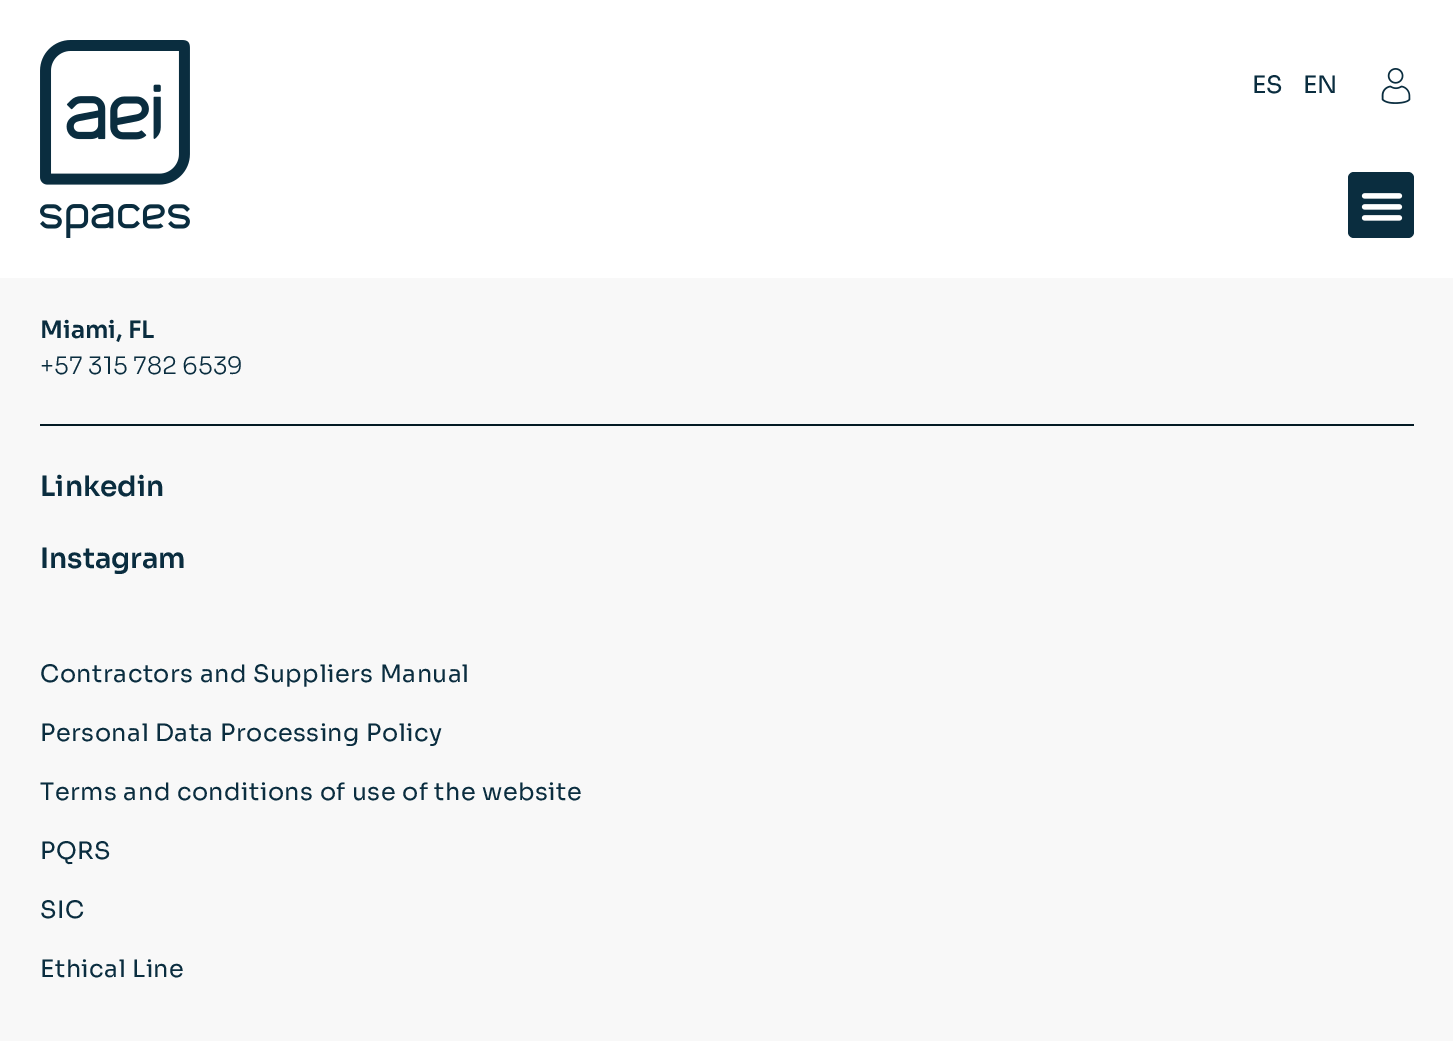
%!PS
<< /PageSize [1453 1041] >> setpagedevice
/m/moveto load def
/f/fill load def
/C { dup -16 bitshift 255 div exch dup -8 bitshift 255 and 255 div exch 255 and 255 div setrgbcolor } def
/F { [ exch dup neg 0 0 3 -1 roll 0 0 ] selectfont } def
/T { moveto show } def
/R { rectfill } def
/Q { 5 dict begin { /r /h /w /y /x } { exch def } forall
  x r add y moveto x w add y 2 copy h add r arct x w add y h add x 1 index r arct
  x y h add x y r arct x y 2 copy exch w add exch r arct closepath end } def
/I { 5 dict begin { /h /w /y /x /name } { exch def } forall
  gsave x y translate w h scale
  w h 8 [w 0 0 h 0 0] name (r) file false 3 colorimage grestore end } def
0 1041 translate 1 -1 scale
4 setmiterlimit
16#F8F8F8 C
0 0 1453 1041 R
16#FFFFFF C
0 0 1453 278 R
(1.rgb) 40 40 150 198 I
/Sora-Regular 24 F
16#0A2D3F C
(ES) 1252 93 T
(EN) 1303 93 T
(2.rgb) 1381 68 30 36 I
1348 172 66 66 6 Q f
(3.rgb) 1361 193 42 28 I
16#031A23 C
40 424 1374 2 R
/Sora-SemiBold 24 F
16#0A2D3F C
(Miami, FL) 40 338 T
/Sora-Light 24 F
(+57 315 782 6539) 40 374 T
/Sora-SemiBold 28 F
(Linkedin) 40 496 T
(Instagram) 40 568 T
/Sora-Regular 24 F
40 682 m .5 0 (Contractors and Suppliers Manual) ashow
40 741 m .5 0 (Personal Data Processing Policy) ashow
40 800 m .5 0 (Terms and conditions of use of the website) ashow
40 859 m .5 0 (PQRS) ashow
40 918 m .5 0 (SIC) ashow
40 977 m .5 0 (Ethical Line) ashow
showpage
